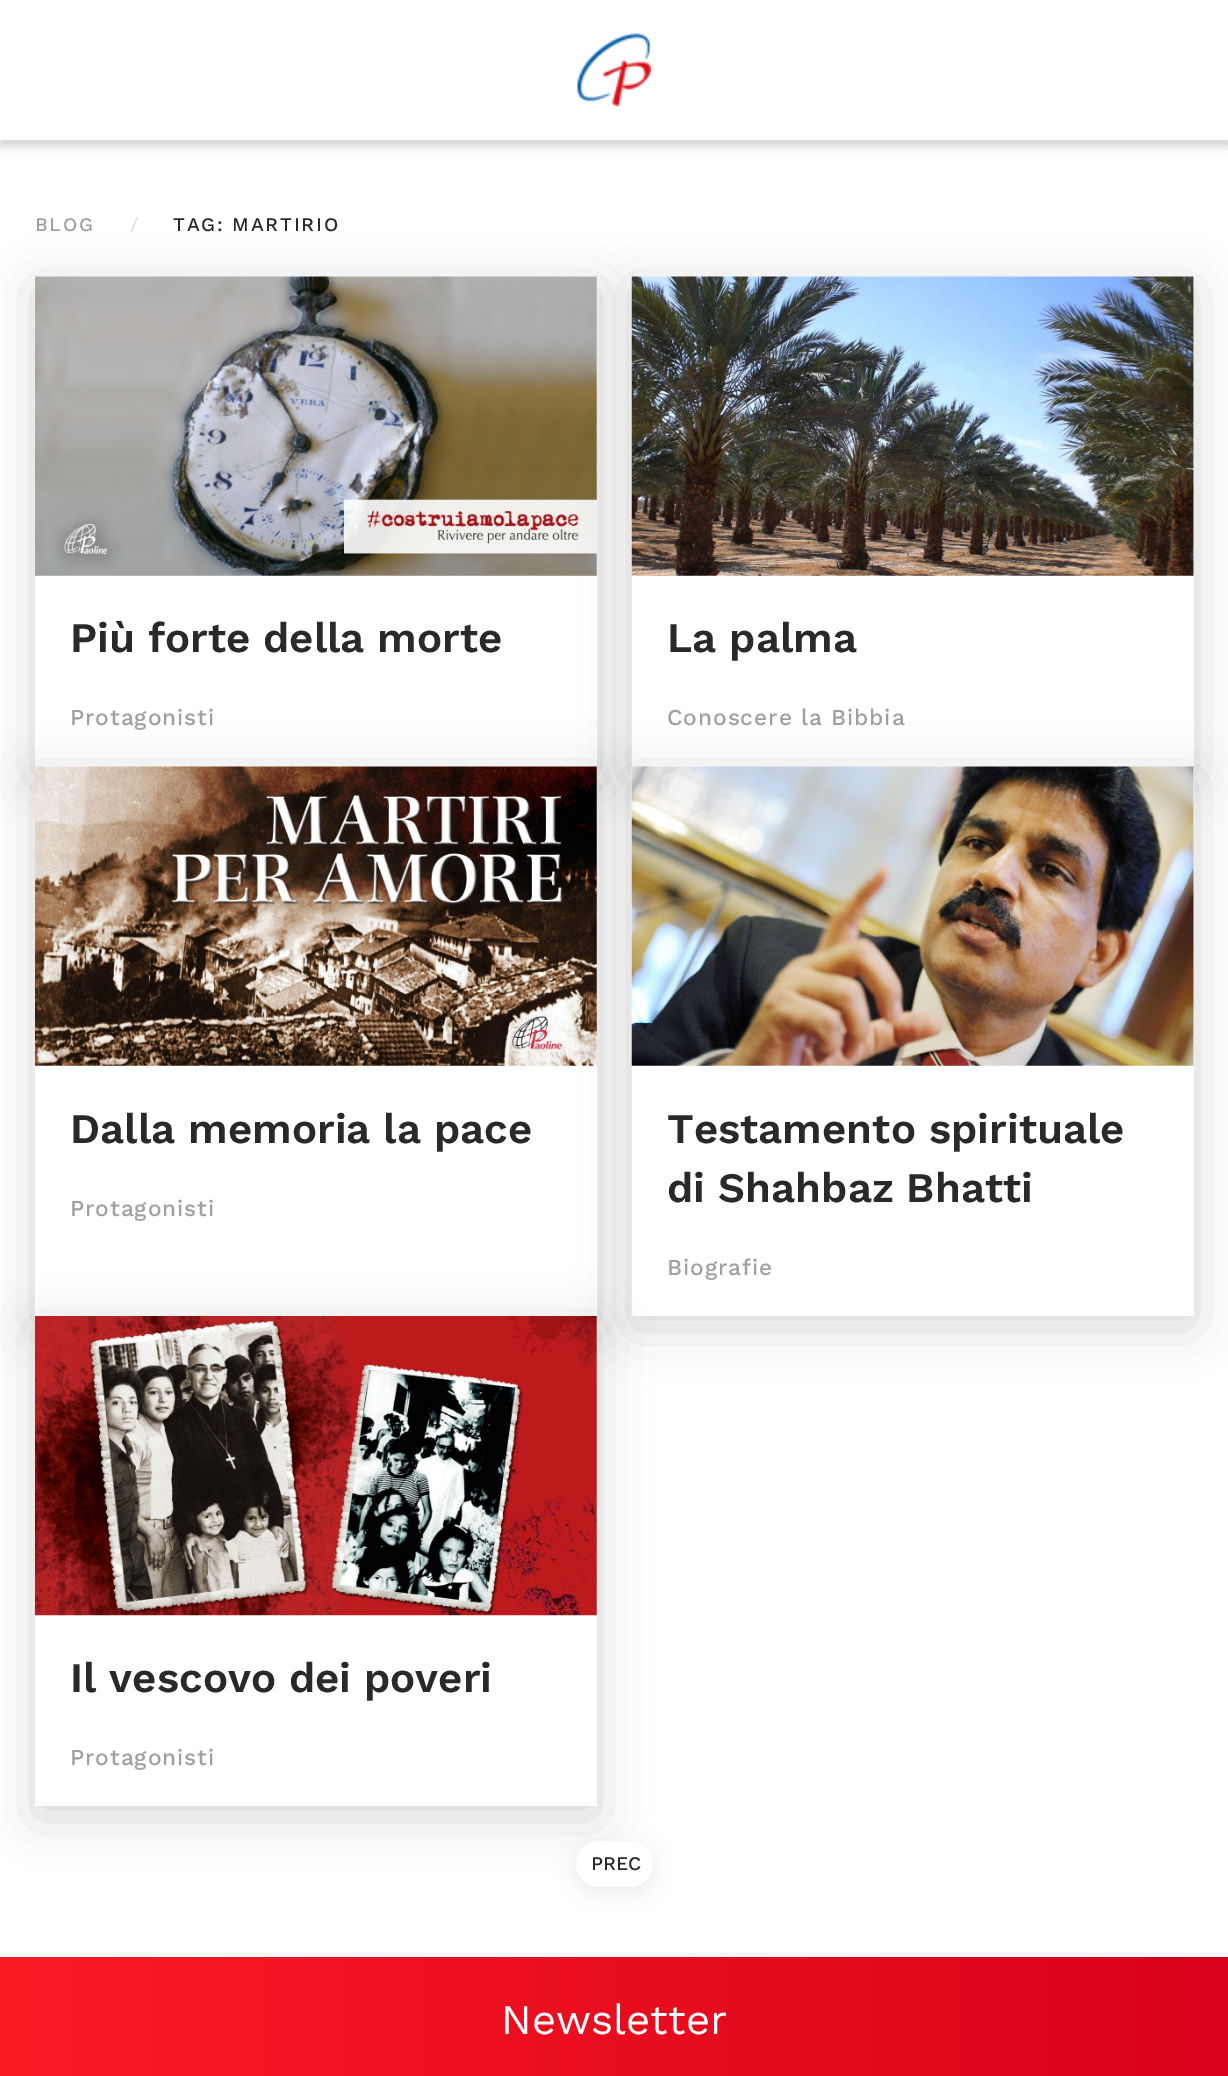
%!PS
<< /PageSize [1228 2076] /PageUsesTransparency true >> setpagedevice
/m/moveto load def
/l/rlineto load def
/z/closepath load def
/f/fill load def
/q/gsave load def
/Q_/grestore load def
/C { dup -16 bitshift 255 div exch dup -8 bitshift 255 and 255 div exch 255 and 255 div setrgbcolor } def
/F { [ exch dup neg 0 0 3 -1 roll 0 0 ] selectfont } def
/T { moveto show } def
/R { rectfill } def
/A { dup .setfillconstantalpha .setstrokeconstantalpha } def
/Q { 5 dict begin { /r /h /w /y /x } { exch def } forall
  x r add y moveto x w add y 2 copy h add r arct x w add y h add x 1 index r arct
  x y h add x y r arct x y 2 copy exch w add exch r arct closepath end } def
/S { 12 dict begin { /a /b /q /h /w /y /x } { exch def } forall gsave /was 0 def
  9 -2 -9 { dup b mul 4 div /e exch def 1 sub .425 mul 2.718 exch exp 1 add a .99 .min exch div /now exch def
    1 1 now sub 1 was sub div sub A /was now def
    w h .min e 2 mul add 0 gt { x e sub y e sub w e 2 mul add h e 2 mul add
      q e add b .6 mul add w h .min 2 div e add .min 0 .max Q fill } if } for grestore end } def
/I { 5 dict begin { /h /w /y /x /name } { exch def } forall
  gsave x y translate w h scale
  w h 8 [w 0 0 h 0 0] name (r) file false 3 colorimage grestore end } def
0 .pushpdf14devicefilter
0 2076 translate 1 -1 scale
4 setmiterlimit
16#FFFFFF C
0 0 1228 2076 R
16#000000 C
0 7 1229 140 0 4.5 .16 S
16#FFFFFF C
0 0 1228 140 R
(1.rgb) 577 33 74 74 I
/WorkSans-Medium 19.25 F
16#A0A0A0 C
35 231 m 1.75 0 (BLOG) ashow
/WorkSans-Regular 19.25 F
16#DCDCDC C
(/) 130 231 T
/WorkSans-Medium 19.25 F
16#292929 C
173 231 m 1.75 0 (TAG: MARTIRIO) ashow
16#000000 C
35 287 562 490 0 26 .16 S
16#FFFFFF C
35 277 562 490 R
(2.rgb) 35 276 562 300 I
/WorkSans-SemiBold 42 F
16#292929 C
(Più forte della morte) 70 652 T
/WorkSans-Medium 22.75 F
16#A0A0A0 C
70 725 m .9 0 (Protagonisti) ashow
16#000000 C
632 287 562 490 0 26 .16 S
16#FFFFFF C
632 277 562 490 R
(3.rgb) 631 276 563 300 I
/WorkSans-SemiBold 42 F
16#292929 C
(La palma) 667 652 T
/WorkSans-Medium 22.75 F
16#A0A0A0 C
667 725 m .9 0 (Conoscere la Bibbia) ashow
16#000000 C
35 777 562 550 0 26 .16 S
16#FFFFFF C
35 767 562 549 R
(4.rgb) 35 766 562 300 I
/WorkSans-SemiBold 42 F
16#292929 C
(Dalla memoria la pace) 70 1143 T
/WorkSans-Medium 22.75 F
16#A0A0A0 C
70 1216 m .9 0 (Protagonisti) ashow
16#000000 C
632 777 562 550 0 26 .16 S
16#FFFFFF C
632 767 562 549 R
(5.rgb) 631 766 563 300 I
/WorkSans-SemiBold 42 F
16#292929 C
(Testamento spirituale) 667 1143 T
(di Shahbaz Bhatti) 667 1202 T
/WorkSans-Medium 22.75 F
16#A0A0A0 C
667 1275 m .9 0 (Biografie) ashow
16#000000 C
35 1327 562 490 0 26 .16 S
16#FFFFFF C
35 1316 562 490 R
(6.rgb) 35 1316 562 300 I
/WorkSans-SemiBold 42 F
16#292929 C
(Il vescovo dei poveri) 70 1692 T
/WorkSans-Medium 22.75 F
16#A0A0A0 C
70 1765 m .9 0 (Protagonisti) ashow
16#000000 C
576 1846 77 46 23 10.5 .07 S
16#FFFFFF C
576 1841 77 46 23 Q f
/WorkSans-Medium 19.25 F
16#292929 C
(PREC) 591 1870 T
q 0 1957 m 1228 0 l 0 119 l -1228 0 l z clip newpath
<< /ShadingType 2 /ColorSpace /DeviceRGB /Coords [0 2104 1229 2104] /Extend [true true] /Function << /FunctionType 2 /Domain [0 1] /C0 [.976 .106 .141] /C1 [.851 0 .106] /N 1 >> >> shfill Q_
/WorkSans-Regular 42 F
16#FFFFFF C
(Newsletter) 501 2034 T
.poppdf14devicefilter showpage
